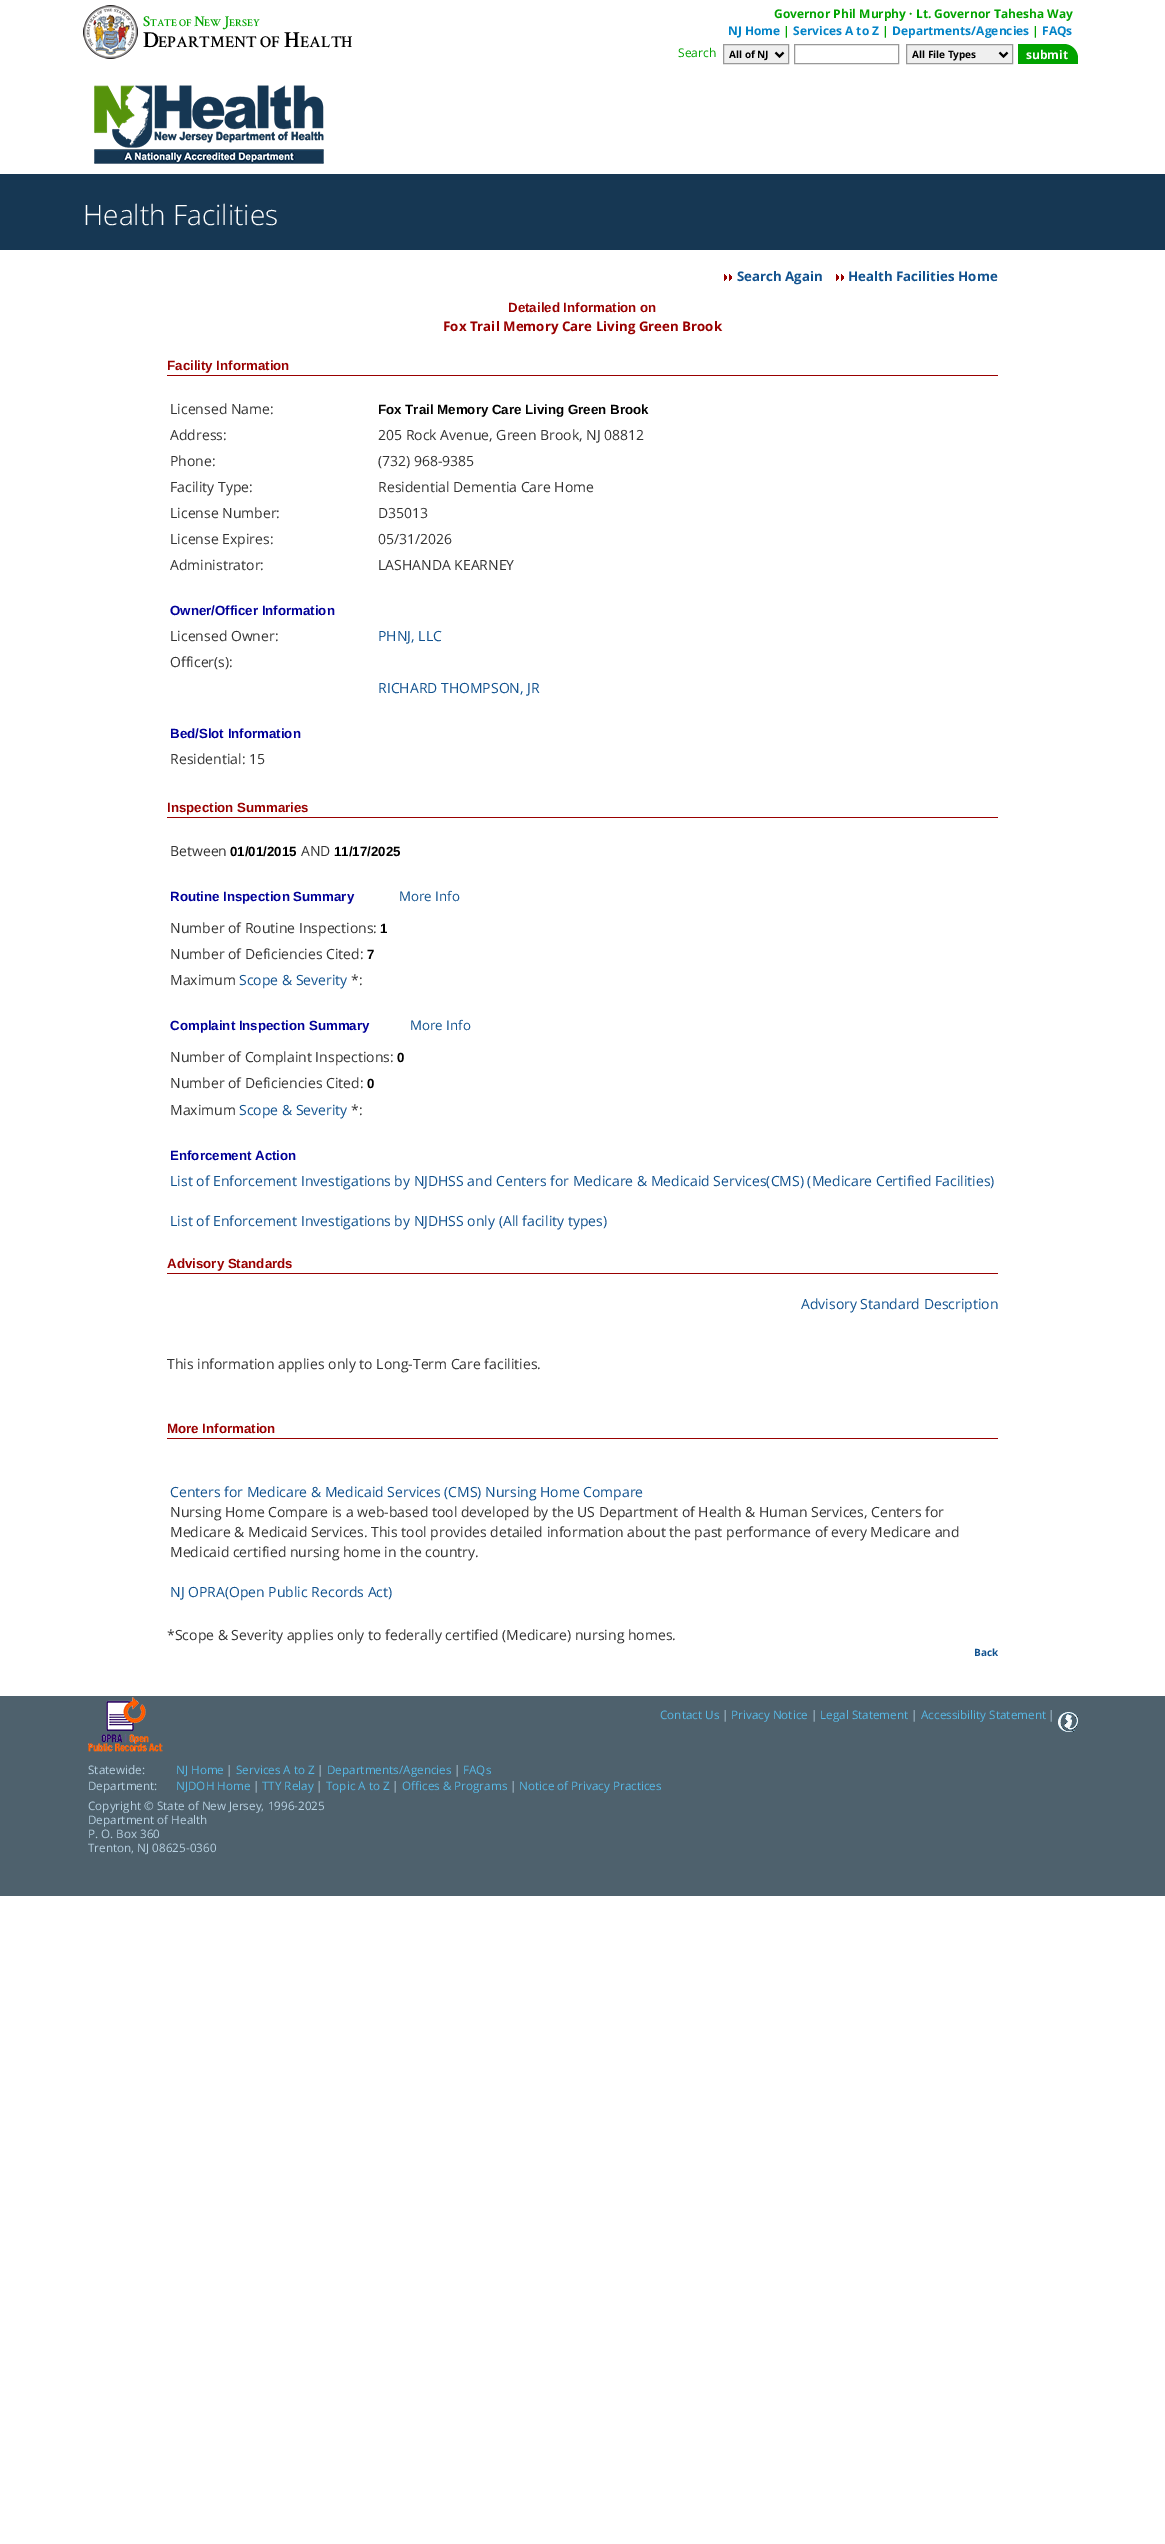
%!PS
<< /PageSize [1165 2544] >> setpagedevice
/m/moveto load def
/l/rlineto load def
/c/rcurveto load def
/z/closepath load def
/f/fill load def
/s/stroke load def
/q/gsave load def
/Q_/grestore load def
/w/setlinewidth load def
/C { dup -16 bitshift 255 div exch dup -8 bitshift 255 and 255 div exch 255 and 255 div setrgbcolor } def
/F { [ exch dup neg 0 0 3 -1 roll 0 0 ] selectfont } def
/T { moveto show } def
/R { rectfill } def
/I { 5 dict begin { /h /w /y /x /name } { exch def } forall
  gsave x y translate w h scale
  w h 8 [w 0 0 h 0 0] name (r) file false 3 colorimage grestore end } def
0 2544 translate 1 -1 scale
4 setmiterlimit
16#FFFFFF C
0 0 1165 2544 R
(1.rgb) 83 5 55 54 I
/CrimsonText-SemiBold 15 F
16#01A300 C
(S) 143 26 T
/CrimsonText-SemiBold 10.5 F
(TATE OF) 150 26 T
/CrimsonText-SemiBold 15 F
(N) 194 26 T
/CrimsonText-SemiBold 10.5 F
(EW) 204 26 T
/CrimsonText-SemiBold 15 F
(J) 224 26 T
/CrimsonText-SemiBold 10.5 F
(ERSEY) 229 26 T
/CrimsonText-SemiBold 23 F
16#000000 C
(D) 143 47 T
/CrimsonText-SemiBold 16.5 F
(EPARTMENT OF) 158 47 T
/CrimsonText-SemiBold 23 F
(H) 284 47 T
/CrimsonText-SemiBold 16.5 F
(EALTH) 300 47 T
/OpenSans-Bold 12 F
16#01A300 C
(Governor Phil Murphy · Lt. Governor Tahesha Way) 774 18 T
16#0283C7 C
(NJ Home) 728 35 T
16#01A300 C
(|) 783 35 T
16#0283C7 C
(Services A to Z) 793 35 T
16#01A300 C
(|) 882 35 T
16#0283C7 C
(Departments/Agencies) 892 35 T
16#01A300 C
(|) 1032 35 T
16#0283C7 C
(FAQs) 1042 35 T
/OpenSans-Regular 12 F
16#01A300 C
(Search) 678 57 T
16#EFEFEF C
723.5 44.5 m 65 0 l 0 19 l -65 0 l z q f Q_
16#999999 C
s
16#000000 C
2 w
775.5 52.5 m 4 4 l 4 -4 l s
/OpenSans-Bold 10 F
(All of NJ) 729 58 T
16#999999 C
1 w
794.5 44.5 104 19 rectstroke
16#EFEFEF C
906.5 44.5 m 106 0 l 0 19 l -106 0 l z q f Q_
16#999999 C
s
16#000000 C
2 w
999.5 52.5 m 4 4 l 4 -4 l s
(All File Types) 912 58 T
16#01A300 C
1018 44 m 46 0 l 7.5 0 14 6.5 14 14 c 0 6 l -60 0 l z f
/OpenSans-Bold 12 F
16#FFFFFF C
(submit) 1026 59 T
(2.rgb) 94 85 230 79 I
16#163753 C
0 174 1165 76 R
/OpenSans-Light 28 F
16#FFFFFF C
(Health Facilities) 83 225 T
(3.rgb) 724 274 8 7 I
/OpenSans-Bold 13.3 F
16#11528F C
(Search Again) 737 281 T
(3.rgb) 836 274 8 7 I
(Health Facilities Home) 848 281 T
/LiberationSans-Bold 13.3 F
16#990000 C
(Detailed Information on) 508 312 T
/OpenSans-Bold 13.3 F
(Fox Trail Memory Care Living Green Brook) 443 331 T
167 375 831 1 R
/LiberationSans-Bold 13.3 F
(Facility Information) 167 370 T
/OpenSans-Regular 14 F
16#333333 C
(Licensed Name:) 170 414 T
/LiberationSans-Bold 13.3 F
16#000000 C
(Fox Trail Memory Care Living Green Brook) 378 414 T
/OpenSans-Regular 14 F
16#333333 C
(Address:) 170 440 T
(205 Rock Avenue, Green Brook, NJ 08812) 378 440 T
(Phone:) 170 466 T
(\(732\) 968-9385) 378 466 T
(Facility Type:) 170 492 T
(Residential Dementia Care Home) 378 492 T
(License Number:) 170 518 T
(D35013) 378 518 T
(License Expires:) 170 544 T
(05/31/2026) 378 544 T
(Administrator:) 170 570 T
(LASHANDA KEARNEY) 378 570 T
/LiberationSans-Bold 13.3 F
16#000099 C
(Owner/Officer Information) 170 615 T
/OpenSans-Regular 14 F
16#333333 C
(Licensed Owner:) 170 641 T
16#11528F C
(PHNJ, LLC) 378 641 T
16#333333 C
(Officer\(s\):) 170 667 T
16#11528F C
(RICHARD THOMPSON, JR) 378 693 T
/LiberationSans-Bold 13.3 F
16#000099 C
(Bed/Slot Information) 170 738 T
/OpenSans-Regular 14 F
16#333333 C
(Residential: 15) 170 764 T
16#990000 C
167 817 831 1 R
/LiberationSans-Bold 13.3 F
(Inspection Summaries) 167 812 T
/OpenSans-Regular 14 F
16#333333 C
(Between) 170 856 T
/LiberationSans-Bold 13.3 F
16#000000 C
(01/01/2015) 230 856 T
/OpenSans-Regular 14 F
16#333333 C
(AND) 301 856 T
/LiberationSans-Bold 13.3 F
16#000000 C
(11/17/2025) 334 856 T
16#000099 C
(Routine Inspection Summary) 170 901 T
/OpenSans-Regular 13.3 F
16#11528F C
(More Info) 399 901 T
/OpenSans-Regular 14 F
16#333333 C
(Number of Routine Inspections:) 170 933 T
/LiberationSans-Bold 13.3 F
16#000000 C
(1) 380 933 T
/OpenSans-Regular 14 F
16#333333 C
(Number of Deficiencies Cited:) 170 959 T
/LiberationSans-Bold 13.3 F
16#000000 C
(7) 367 959 T
/OpenSans-Regular 14 F
16#333333 C
(Maximum) 170 985 T
16#11528F C
(Scope & Severity) 239 985 T
16#333333 C
(*:) 351 985 T
/LiberationSans-Bold 13.3 F
16#000099 C
(Complaint Inspection Summary) 170 1030 T
/OpenSans-Regular 13.3 F
16#11528F C
(More Info) 410 1030 T
/OpenSans-Regular 14 F
16#333333 C
(Number of Complaint Inspections:) 170 1062 T
/LiberationSans-Bold 13.3 F
16#000000 C
(0) 397 1062 T
/OpenSans-Regular 14 F
16#333333 C
(Number of Deficiencies Cited:) 170 1088 T
/LiberationSans-Bold 13.3 F
16#000000 C
(0) 367 1088 T
/OpenSans-Regular 14 F
16#333333 C
(Maximum) 170 1115 T
16#11528F C
(Scope & Severity) 239 1115 T
16#333333 C
(*:) 351 1115 T
/LiberationSans-Bold 13.3 F
16#000099 C
(Enforcement Action) 170 1160 T
/OpenSans-Regular 14 F
16#11528F C
(List of Enforcement Investigations by NJDHSS and Centers for Medicare & Medicaid Services\(CMS\) \(Medicare Certified Facilities\)) 170 1186 T
(List of Enforcement Investigations by NJDHSS only \(All facility types\)) 170 1226 T
16#990000 C
167 1273 831 1 R
/LiberationSans-Bold 13.3 F
(Advisory Standards) 167 1268 T
/OpenSans-Regular 14 F
16#11528F C
(Advisory Standard Description) 801 1309 T
16#333333 C
(This information applies only to Long-Term Care facilities.) 167 1369 T
16#990000 C
167 1438 831 1 R
/LiberationSans-Bold 13.3 F
(More Information) 167 1433 T
/OpenSans-Regular 14 F
16#11528F C
(Centers for Medicare & Medicaid Services \(CMS\) Nursing Home Compare) 170 1497 T
16#333333 C
(Nursing Home Compare is a web-based tool developed by the US Department of Health & Human Services, Centers for) 170 1517 T
(Medicare & Medicaid Services. This tool provides detailed information about the past performance of every Medicare and) 170 1537 T
(Medicaid certified nursing home in the country.) 170 1557 T
16#11528F C
(NJ OPRA\(Open Public Records Act\)) 170 1597 T
16#333333 C
(*Scope & Severity applies only to federally certified \(Medicare\) nursing homes.) 167 1640 T
/OpenSans-Bold 10 F
16#11528F C
(Back) 974 1656 T
16#4E616D C
0 1696 1165 200 R
(4.rgb) 88 1697 75 55 I
/OpenSans-Regular 11.7 F
16#57BAE8 C
(Contact Us) 660 1719 T
16#B8D2E3 C
(|) 722 1719 T
16#57BAE8 C
(Privacy Notice) 731 1719 T
16#B8D2E3 C
(|) 811 1719 T
16#57BAE8 C
(Legal Statement) 820 1719 T
16#B8D2E3 C
(|) 911 1719 T
16#57BAE8 C
(Accessibility Statement) 921 1719 T
16#B8D2E3 C
(|) 1048 1719 T
(5.rgb) 1058 1712 20 20 I
(Statewide:) 88 1774 T
16#57BAE8 C
(NJ Home) 176 1774 T
16#B8D2E3 C
(|) 226 1774 T
16#57BAE8 C
(Services A to Z) 236 1774 T
16#B8D2E3 C
(|) 317 1774 T
16#57BAE8 C
(Departments/Agencies) 327 1774 T
16#B8D2E3 C
(|) 454 1774 T
16#57BAE8 C
(FAQs) 463 1774 T
16#B8D2E3 C
(Department:) 88 1790 T
16#57BAE8 C
(NJDOH Home) 176 1790 T
16#B8D2E3 C
(|) 253 1790 T
16#57BAE8 C
(TTY Relay) 262 1790 T
16#B8D2E3 C
(|) 316 1790 T
16#57BAE8 C
(Topic A to Z) 326 1790 T
16#B8D2E3 C
(|) 392 1790 T
16#57BAE8 C
(Offices & Programs) 402 1790 T
16#B8D2E3 C
(|) 510 1790 T
16#57BAE8 C
(Notice of Privacy Practices) 519 1790 T
16#B8D2E3 C
(Copyright © State of New Jersey, 1996-2025) 88 1810 T
(Department of Health) 88 1824 T
(P. O. Box 360) 88 1838 T
(Trenton, NJ 08625-0360) 88 1852 T
showpage
